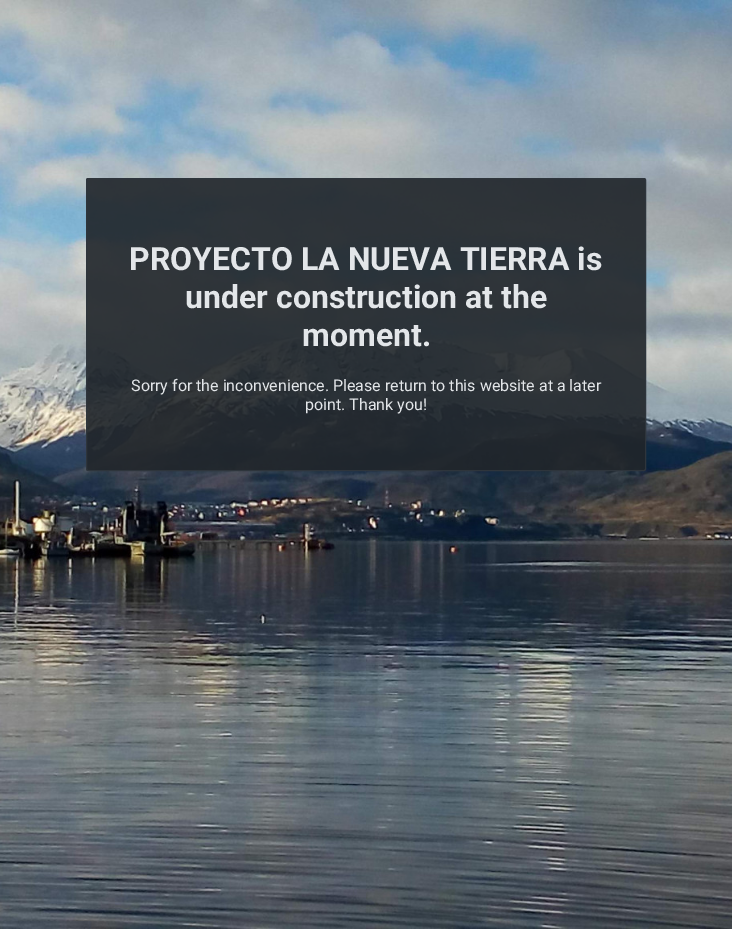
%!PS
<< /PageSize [732 929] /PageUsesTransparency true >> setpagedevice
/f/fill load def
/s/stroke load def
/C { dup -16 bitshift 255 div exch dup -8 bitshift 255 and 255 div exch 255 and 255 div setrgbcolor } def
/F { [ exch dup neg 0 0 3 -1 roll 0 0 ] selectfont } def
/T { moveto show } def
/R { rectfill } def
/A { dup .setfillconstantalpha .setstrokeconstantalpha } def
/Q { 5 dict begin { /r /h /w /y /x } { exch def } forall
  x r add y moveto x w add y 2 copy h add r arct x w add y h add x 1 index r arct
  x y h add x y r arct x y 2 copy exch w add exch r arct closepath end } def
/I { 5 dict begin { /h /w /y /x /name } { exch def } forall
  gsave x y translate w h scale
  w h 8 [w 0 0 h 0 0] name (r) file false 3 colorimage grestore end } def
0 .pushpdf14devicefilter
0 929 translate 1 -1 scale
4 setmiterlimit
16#FFFFFF C
0 0 732 929 R
(1.rgb) 0 0 732 929 I
0.9 A
16#20252A C
86.5 178.5 559 292 1.5 Q f
1 A
16#2E353C C
86.5 178.5 559 292 1.5 Q s
/Roboto-Bold 32 F
16#E3E6E9 C
(PROYECTO LA NUEVA TIERRA is) 129 270 T
(under construction at the) 185 308 T
(moment.) 302 346 T
/Roboto-Regular 16 F
(Sorry for the inconvenience. Please return to this website at a later) 131 391 T
(point. Thank you!) 305 410 T
.poppdf14devicefilter showpage
